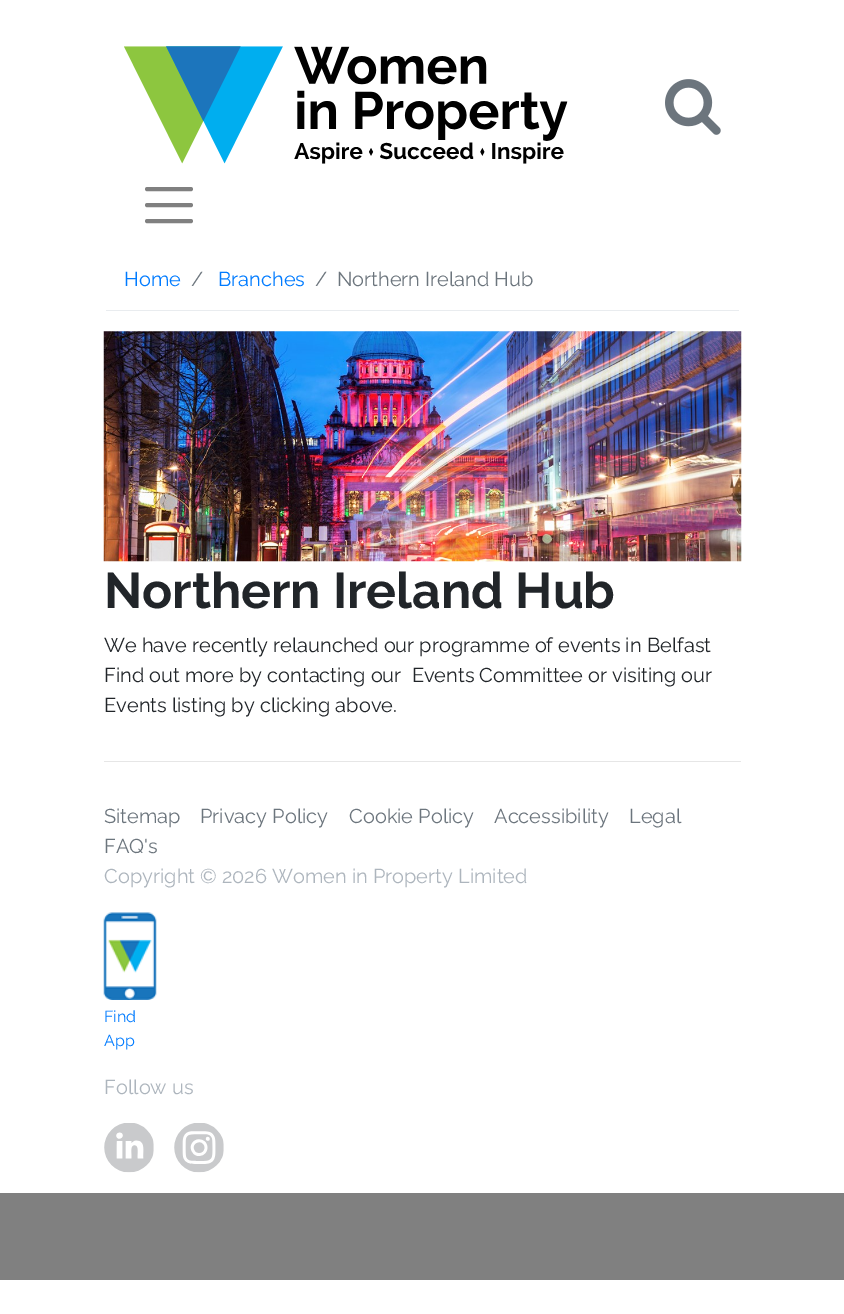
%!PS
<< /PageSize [844 1314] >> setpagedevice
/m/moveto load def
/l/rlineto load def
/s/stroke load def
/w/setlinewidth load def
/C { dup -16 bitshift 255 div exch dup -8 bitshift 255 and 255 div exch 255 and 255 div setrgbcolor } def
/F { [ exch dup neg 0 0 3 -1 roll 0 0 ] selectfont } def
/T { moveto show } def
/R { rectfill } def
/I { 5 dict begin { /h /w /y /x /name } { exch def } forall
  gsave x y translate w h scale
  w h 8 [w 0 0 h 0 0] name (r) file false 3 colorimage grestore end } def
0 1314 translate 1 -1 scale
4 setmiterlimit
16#FFFFFF C
0 0 844 1314 R
16#808080 C
0 1193 844 87 R
(1.rgb) 124 46 444 118 I
(2.rgb) 665 79 56 56 I
4 w
1 setlinecap
147 189 m 44 0 l 147 205 m 44 0 l 147 221 m 44 0 l s
16#E9ECEF C
106 310 633 1 R
/Raleway-Regular 20 F
16#007BFF C
(Home) 124 286 T
16#6C757D C
(/) 191 286 T
16#007BFF C
(Branches) 218 286 T
16#6C757D C
(/) 315 286 T
(Northern Ireland Hub) 337 286 T
(3.rgb) 103 331 639 231 I
/Raleway-Bold 50 F
16#212529 C
(Northern Ireland Hub) 104 608 T
/Raleway-Regular 20 F
(We have recently relaunched our programme of events in Belfast) 104 652 T
(Find out more by contacting our  Events Committee or visiting our) 104 682 T
(Events listing by clicking above.) 104 712 T
16#E6E6E6 C
104 761 637 1 R
16#6C757D C
(Sitemap) 104 823 T
(Privacy Policy) 200 823 T
(Cookie Policy) 349 823 T
(Accessibility) 494 823 T
(Legal) 629 823 T
(FAQ's) 104 853 T
16#ADB5BD C
(Copyright © 2026 Women in Property Limited) 104 883 T
(4.rgb) 103 912 54 88 I
/Raleway-Regular 16 F
16#007BFF C
(Find) 104 1022 T
(App) 104 1046 T
/Raleway-Regular 20 F
16#ADB5BD C
(Follow us) 104 1094 T
(5.rgb) 104 1123 50 50 I
(6.rgb) 174 1123 50 50 I
showpage
